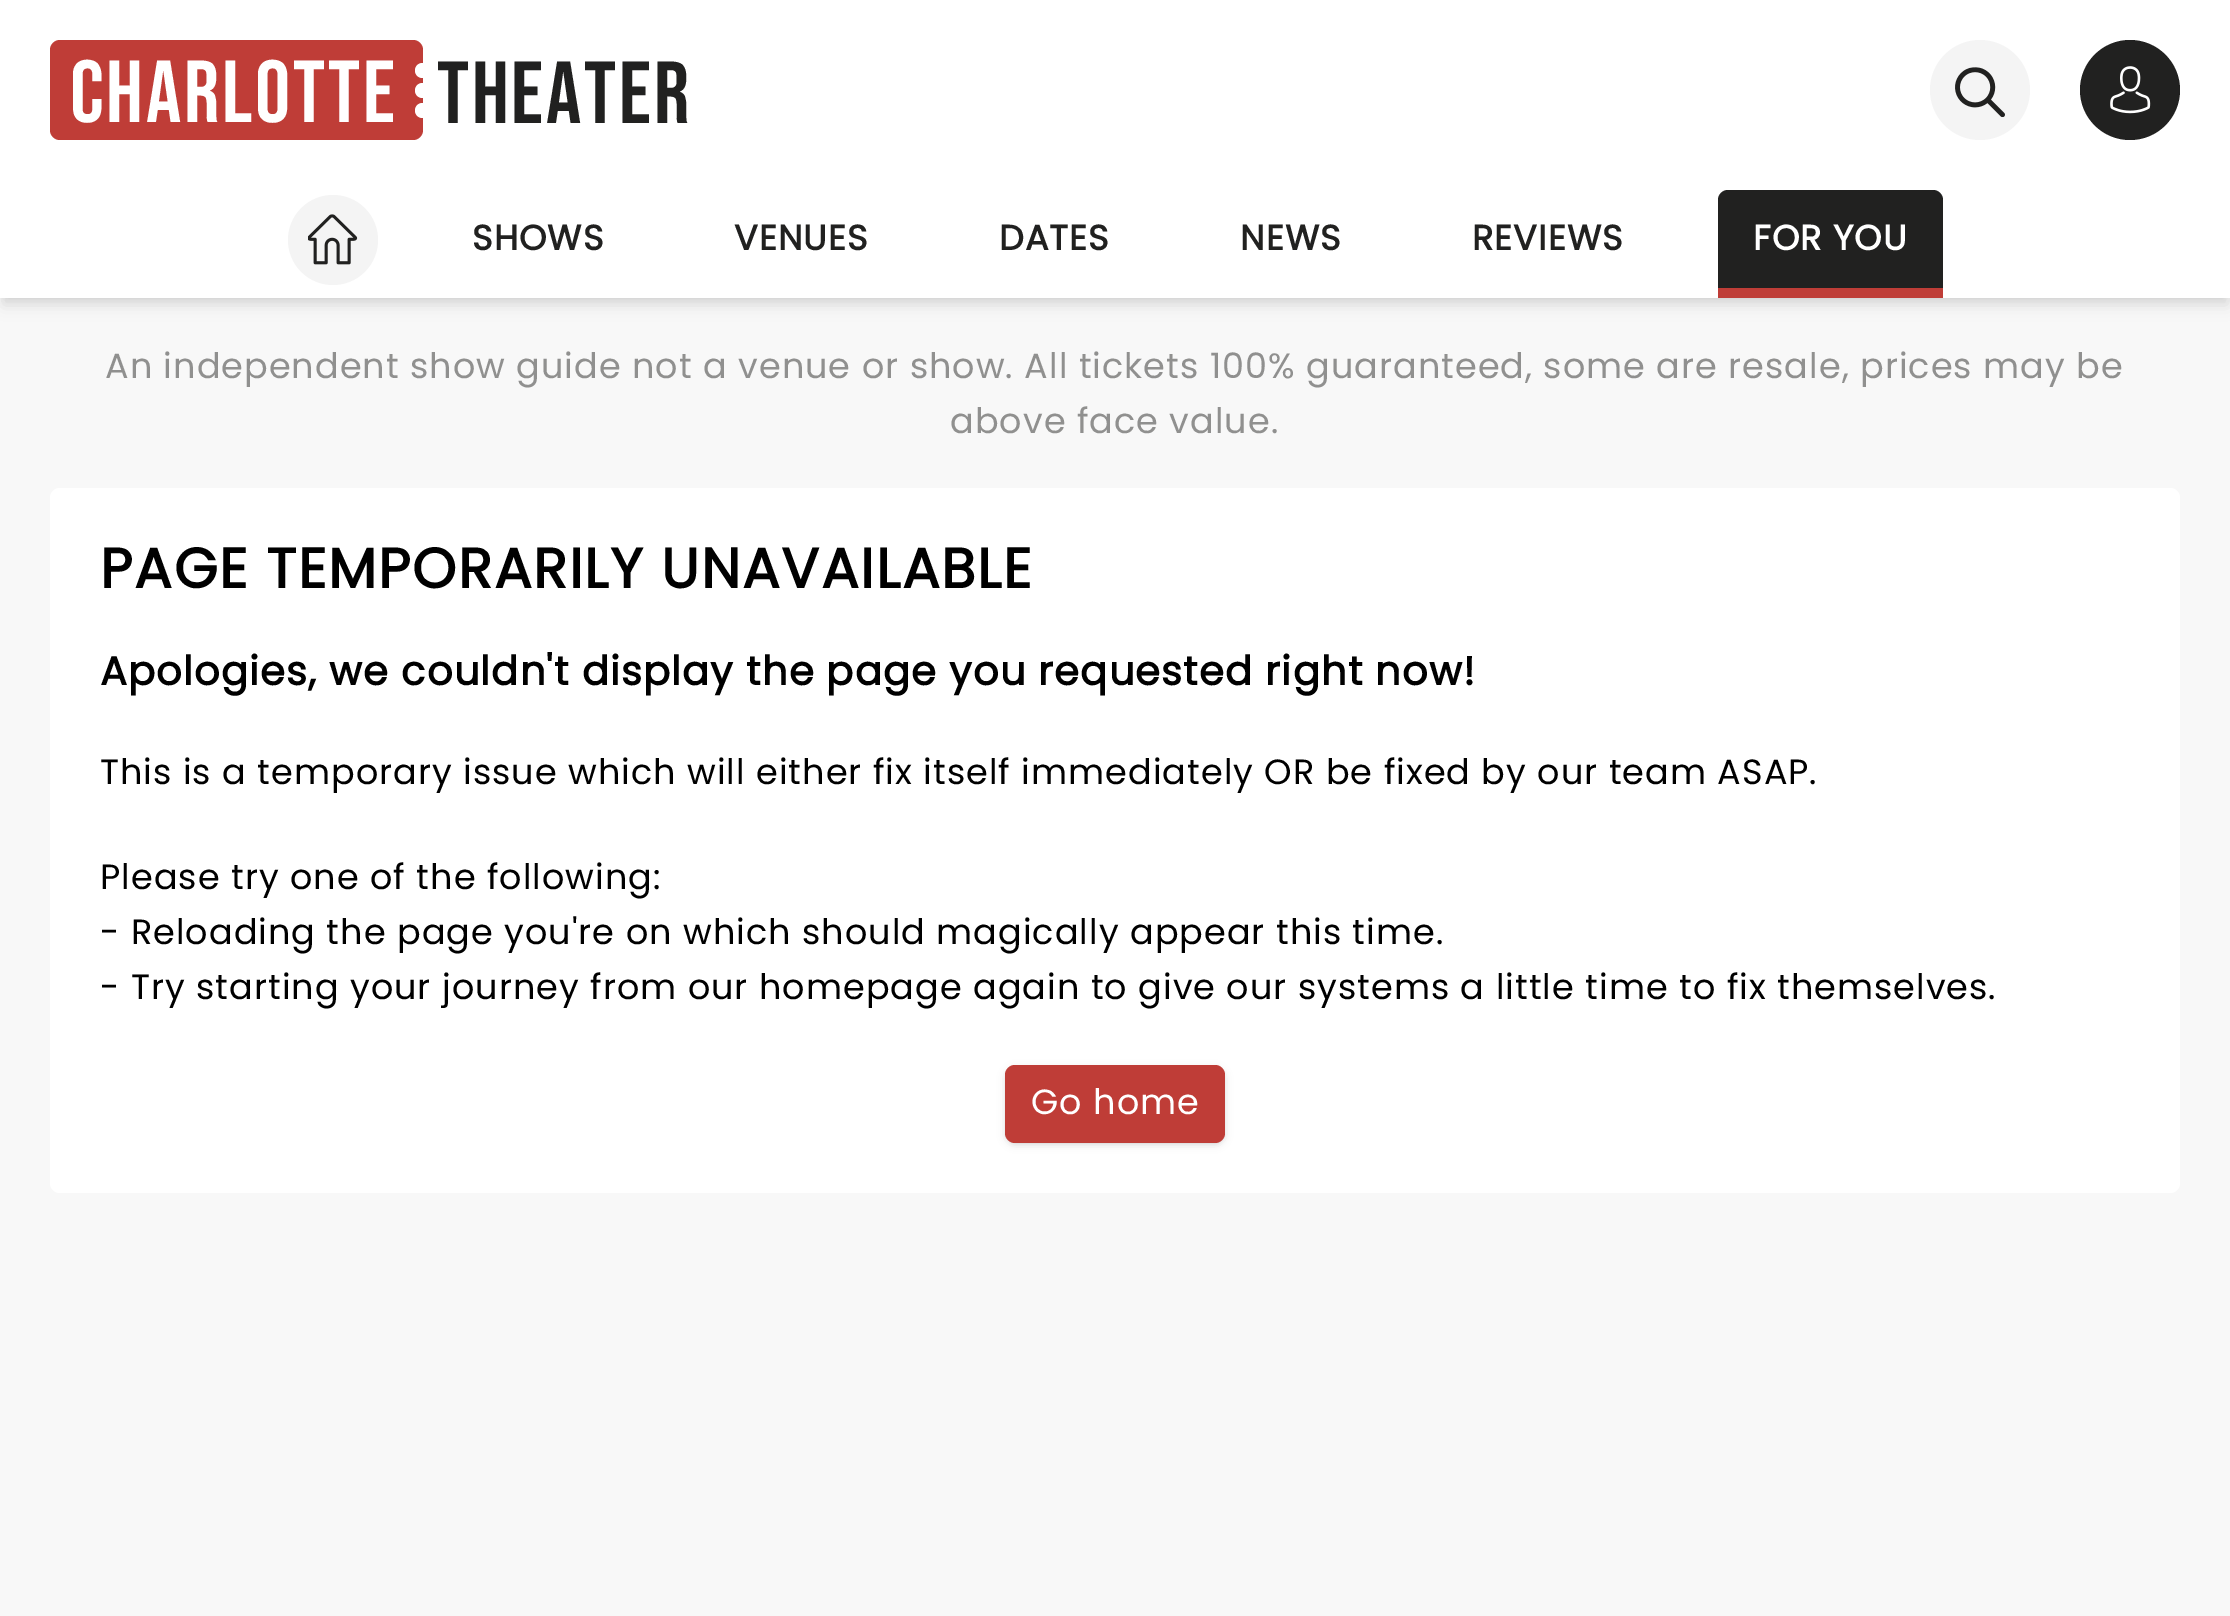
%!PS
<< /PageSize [2230 1616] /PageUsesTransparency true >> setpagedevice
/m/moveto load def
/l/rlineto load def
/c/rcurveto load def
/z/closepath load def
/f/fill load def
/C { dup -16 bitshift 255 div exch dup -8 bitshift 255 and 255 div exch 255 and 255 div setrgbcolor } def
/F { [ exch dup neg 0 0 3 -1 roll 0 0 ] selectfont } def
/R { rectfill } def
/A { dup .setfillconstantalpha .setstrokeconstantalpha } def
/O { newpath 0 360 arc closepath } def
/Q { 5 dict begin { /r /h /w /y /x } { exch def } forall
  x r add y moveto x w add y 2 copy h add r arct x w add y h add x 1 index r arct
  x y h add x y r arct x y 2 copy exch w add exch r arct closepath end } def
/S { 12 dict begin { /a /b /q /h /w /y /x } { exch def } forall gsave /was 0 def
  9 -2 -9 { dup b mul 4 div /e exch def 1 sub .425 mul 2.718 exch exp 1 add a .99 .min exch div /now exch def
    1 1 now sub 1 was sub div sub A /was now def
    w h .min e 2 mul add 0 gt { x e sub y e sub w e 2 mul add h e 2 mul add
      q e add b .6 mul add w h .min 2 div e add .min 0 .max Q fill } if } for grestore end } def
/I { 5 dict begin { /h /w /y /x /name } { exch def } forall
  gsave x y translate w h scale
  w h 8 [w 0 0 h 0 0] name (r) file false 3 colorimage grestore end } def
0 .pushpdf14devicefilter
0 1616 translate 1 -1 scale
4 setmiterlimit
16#F8F8F8 C
0 0 2230 1616 R
16#000000 C
5 150 2220 148 0 5 .1 S
3 153 2225 152 0 7.5 .1 S
16#FFFFFF C
0 0 2230 298 R
16#BF3D37 C
50 40 373 100 10 Q f
/BebasNeue-Regular 88 F
16#FFFFFF C
70 122 m 2.75 0 (Charlotte) ashow
422.5 70.5 7.5 O f
422.5 90.5 7.5 O f
422.5 110.5 7.5 O f
16#212120 C
437 123 m 2.75 0 (Theater) ashow
16#F4F4F4 C
1980 90 50 O f
(1.rgb) 1955 67 50 51 I
16#212120 C
2130 90 50 O f
(2.rgb) 2110 66 41 48 I
16#F4F4F4 C
333 240 45 O f
(3.rgb) 308 214 50 51 I
/Poppins-Bold 35 F
16#212120 C
472 250 m 1.05 0 (SHOWS) ashow
734 250 m 1.05 0 (VENUES) ashow
999 250 m 1.05 0 (DATES) ashow
1240 250 m 1.05 0 (NEWS) ashow
1472 250 m 1.05 0 (REVIEWS) ashow
1728 190 m 205 0 l 5.5 0 10 4.5 10 10 c 0 88 l -225 0 l 0 -88 l 0 -5.5 4.5 -10 10 -10 c z f
16#BF3D37 C
1718 288 225 10 R
16#FFFFFF C
1753 250 m 1.05 0 (FOR YOU) ashow
/Poppins-Regular 35 F
16#90908F C
105 378 m 1.05 0 (An independent show guide not a venue or show. All tickets 100% guaranteed, some are resale, prices may be) ashow
950 433 m 1.05 0 (above face value.) ashow
16#FFFFFF C
50 488 2130 705 10 Q f
/Poppins-Bold 56 F
16#000000 C
100 588 m 1.7 0 (PAGE TEMPORARILY UNAVAILABLE) ashow
/Poppins-Bold 40 F
100 685 m 1.2 0 (Apologies, we couldn't display the page you requested right now!) ashow
/Poppins-Regular 35 F
100 784 m 1.05 0 (This is a temporary issue which will either fix itself immediately OR be fixed by our team ASAP.) ashow
100 889 m 1.05 0 (Please try one of the following:) ashow
100 944 m 1.05 0 (- Reloading the page you're on which should magically appear this time.) ashow
100 999 m 1.05 0 (- Try starting your journey from our homepage again to give our systems a little time to fix themselves.) ashow
1008 1070 215 73 8 2.5 .1 S
1005 1068 220 77 10 4 .1 S
16#BF3D37 C
1005 1065 220 78 10 Q f
16#FFFFFF C
1031 1114 m 1.05 0 (Go home) ashow
.poppdf14devicefilter showpage
